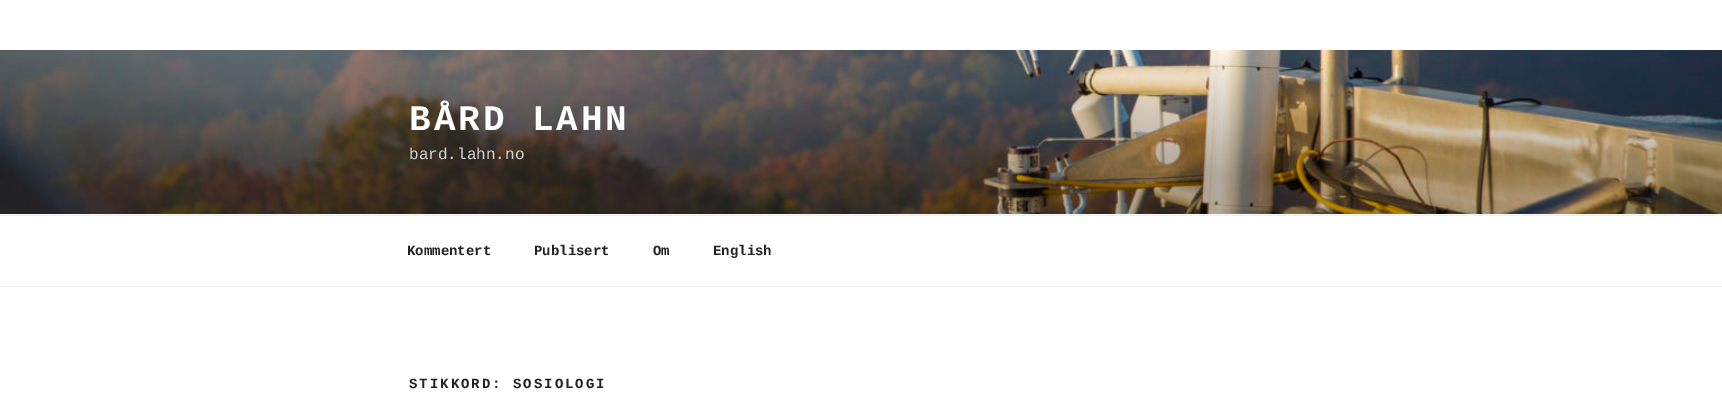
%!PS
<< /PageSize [1722 418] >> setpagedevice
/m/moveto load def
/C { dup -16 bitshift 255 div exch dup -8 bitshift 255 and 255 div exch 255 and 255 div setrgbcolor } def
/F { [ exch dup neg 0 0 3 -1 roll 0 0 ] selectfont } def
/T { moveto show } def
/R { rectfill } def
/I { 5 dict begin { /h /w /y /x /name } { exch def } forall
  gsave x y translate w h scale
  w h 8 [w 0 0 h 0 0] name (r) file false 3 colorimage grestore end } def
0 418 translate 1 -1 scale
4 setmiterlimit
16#FFFFFF C
0 0 1722 418 R
16#FAFAFA C
0 214 1722 1 R
(1.rgb) 0 50 1722 164 I
/LiberationMono-Bold 36 F
16#FFFFFF C
409 130 m 2.9 0 (BÅRD LAHN) ashow
/LiberationMono-Regular 16 F
16#D6D5D3 C
(bard.lahn.no) 409 159 T
16#EEEEEE C
0 215 1722 1 R
0 286 1722 1 R
/LiberationMono-Bold 14 F
16#222222 C
(Kommentert) 407 255 T
(Publisert) 534 255 T
(Om) 653 255 T
(English) 713 255 T
409 388 m 2 0 (STIKKORD: SOSIOLOGI) ashow
showpage
